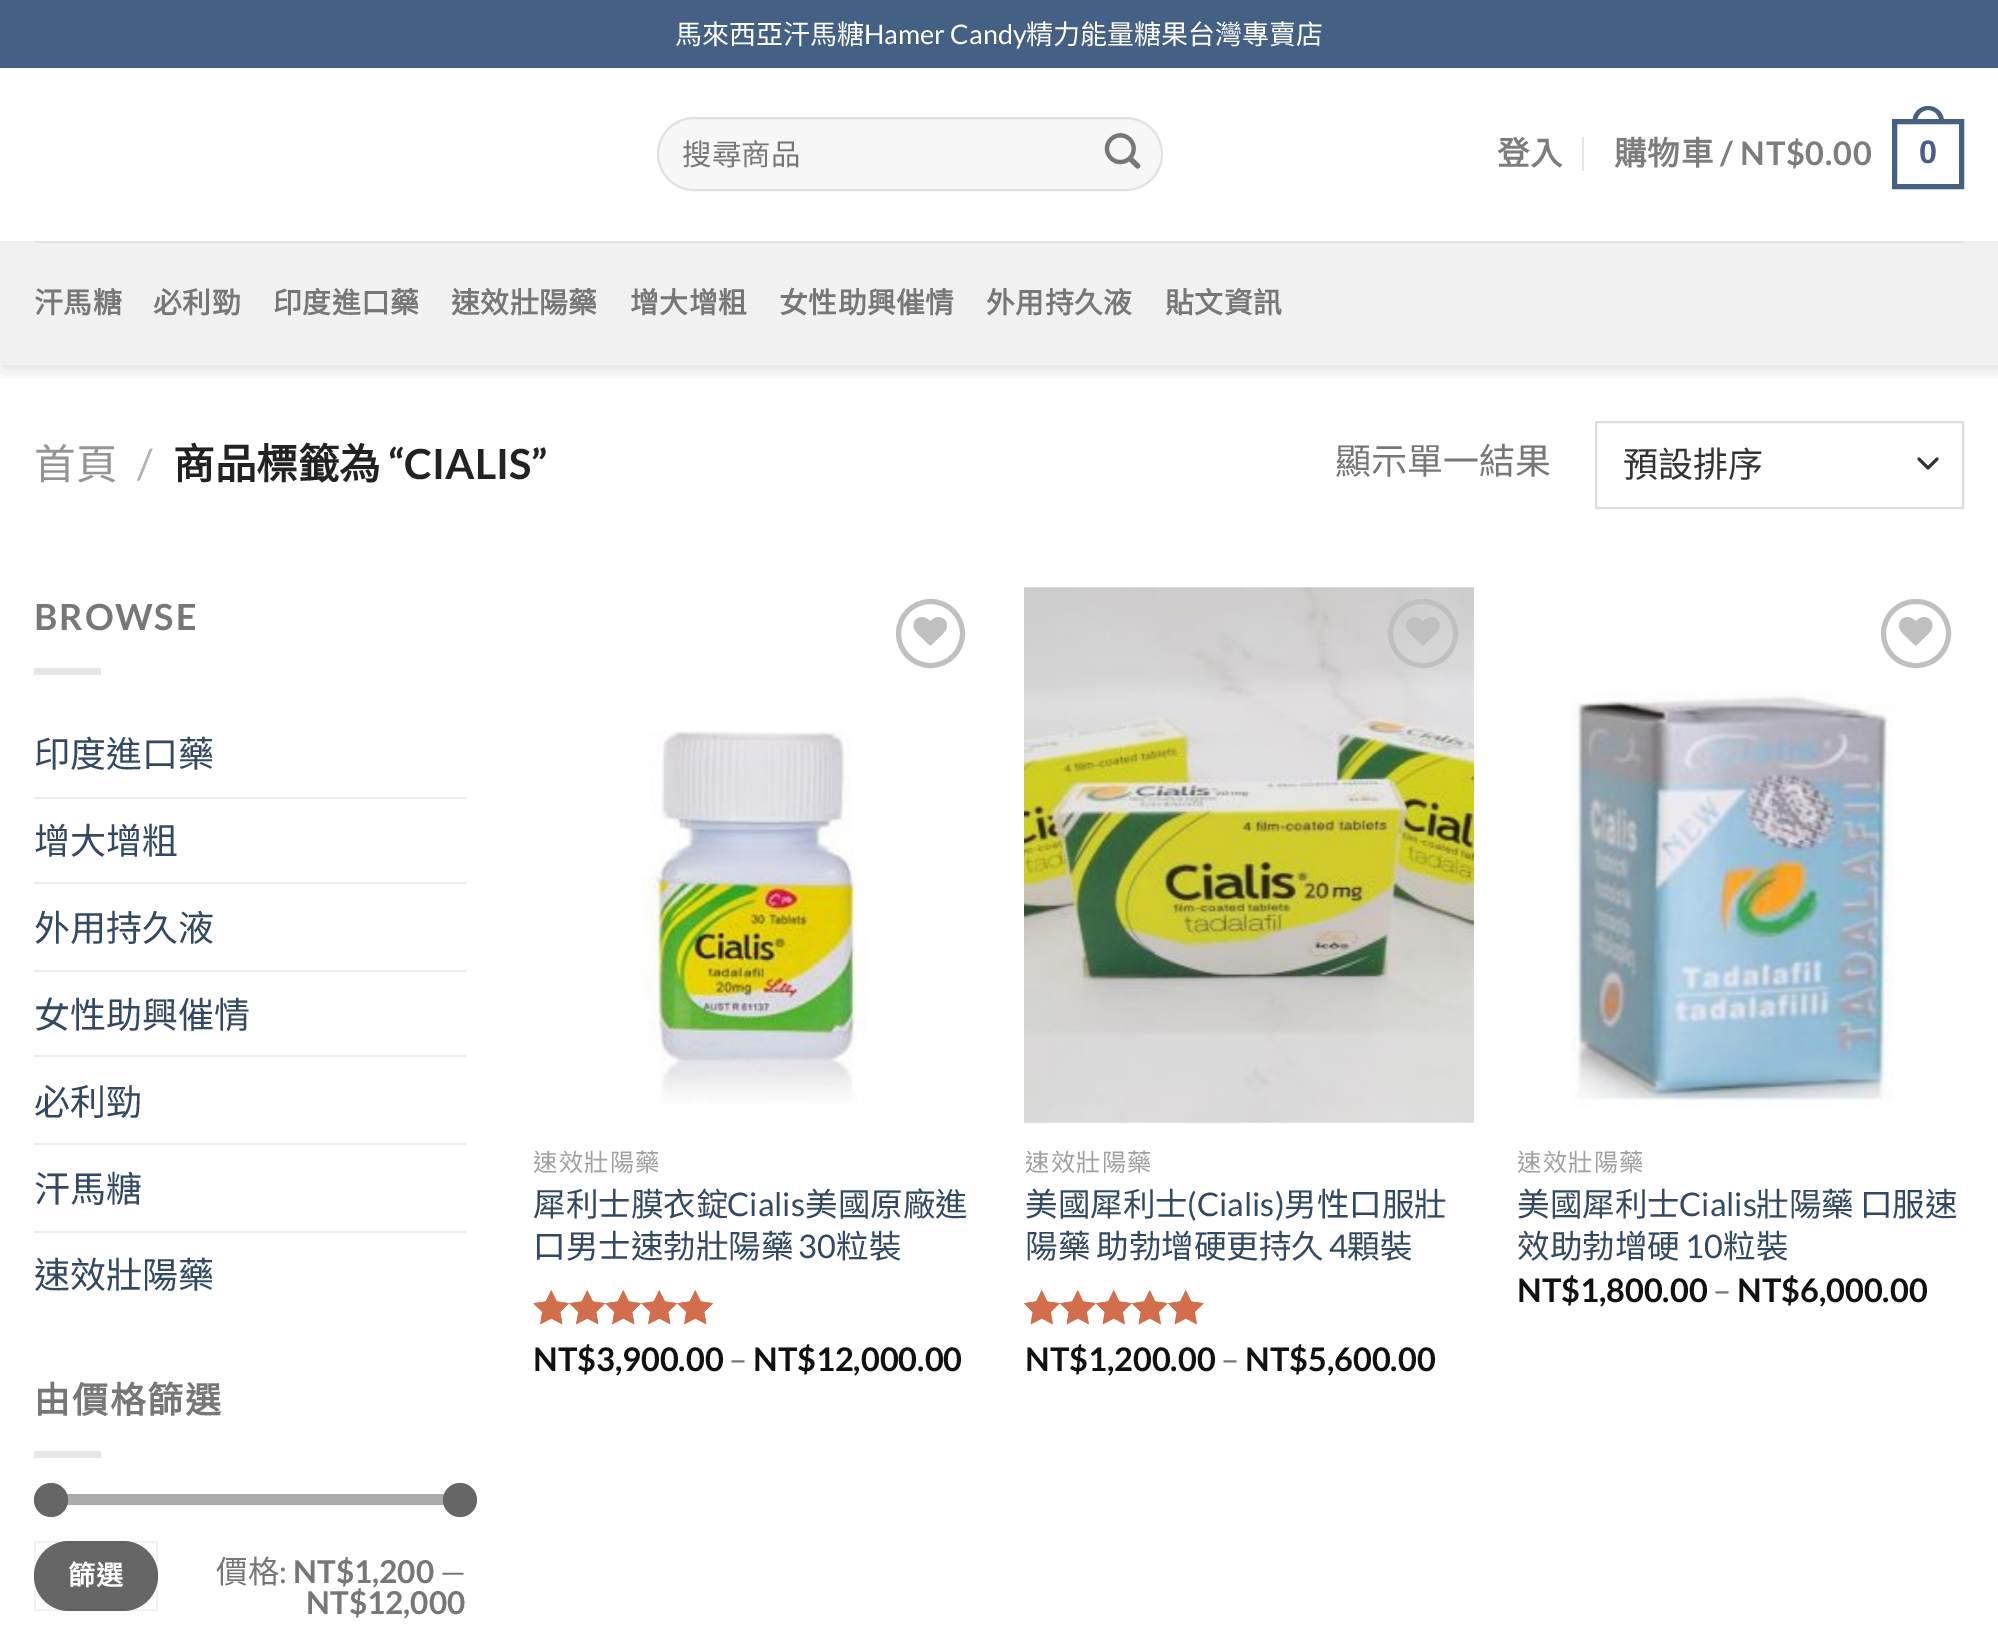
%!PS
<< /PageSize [1998 1640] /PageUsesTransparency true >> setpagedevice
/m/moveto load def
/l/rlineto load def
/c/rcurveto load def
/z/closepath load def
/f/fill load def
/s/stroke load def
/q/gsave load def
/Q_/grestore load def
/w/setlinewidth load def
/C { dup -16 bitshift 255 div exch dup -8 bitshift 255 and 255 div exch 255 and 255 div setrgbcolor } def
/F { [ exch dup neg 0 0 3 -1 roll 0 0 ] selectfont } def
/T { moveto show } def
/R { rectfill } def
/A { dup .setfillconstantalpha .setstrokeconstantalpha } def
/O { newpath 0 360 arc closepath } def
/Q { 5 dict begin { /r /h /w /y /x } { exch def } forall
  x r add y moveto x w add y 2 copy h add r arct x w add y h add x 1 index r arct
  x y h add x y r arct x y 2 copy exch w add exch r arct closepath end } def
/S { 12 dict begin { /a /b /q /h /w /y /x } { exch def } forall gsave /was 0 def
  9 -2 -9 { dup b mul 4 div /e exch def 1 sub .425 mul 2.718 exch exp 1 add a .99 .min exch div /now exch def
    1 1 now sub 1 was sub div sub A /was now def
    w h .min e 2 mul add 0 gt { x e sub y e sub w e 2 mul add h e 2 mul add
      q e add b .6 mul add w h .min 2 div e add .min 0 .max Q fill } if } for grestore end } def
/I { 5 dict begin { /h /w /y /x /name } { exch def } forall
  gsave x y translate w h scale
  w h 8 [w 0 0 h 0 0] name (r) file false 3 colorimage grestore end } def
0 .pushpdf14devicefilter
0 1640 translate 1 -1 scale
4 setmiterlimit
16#FFFFFF C
0 0 1998 1640 R
q
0 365 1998 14 rectclip
16#000000 C
2 2 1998 365 0 11 .15 S
Q_
16#446084 C
0 0 1998 68 R
/NotoSansCJKTC-Regular 27 F
16#FFFFFF C
(馬來西亞汗馬糖) 675 44 T
/Lato-Regular 27 F
(Hamer Candy) 864 44 T
/NotoSansCJKTC-Regular 27 F
(精力能量糖果台灣專賣店) 1026 44 T
16#F7F7F7 C
657 117 506 74 37 Q f
0.09 A
16#000000 C
2 w
658 118 504 72 36 Q s
/NotoSansCJKTC-Regular 29.5 F
1 A
16#777777 C
(搜尋商品) 682 165 T
(1.rgb) 1104 133 37 36 I
/NotoSansCJKTC-Bold 32.5 F
16#7D7D7D C
1497 165 m .75 0 (登入) ashow
16#E6E6E6 C
1582 137 2 34 R
16#7D7D7D C
1614 165 m .75 0 (購物車) ashow
/Lato-Bold 32.5 F
1720 165 m .75 0 (/ NT$0.00) ashow
16#446084 C
5 w
1894.5 121.5 67 65 rectstroke
1928 106 m 9 0 16 7 16 15.5 c 0 2.5 l -31.5 0 l 0 -2.5 l 0 -8.5 7 -15.5 15.5 -15.5 c z 1928 110 m 6.5 0 11.5 5.5 11.5 11.5 c 0 2.5 l -22.5 0 l 0 -2.5 l 0 -6 5 -11.5 11 -11.5 c z eofill
/LiberationSans-Bold 32.5 F
1919 163 m .75 0 (0) ashow
16#F1F1F1 C
0 241 1998 124 R
16#E5E5E5 C
34 241 1930 2 R
/NotoSansCJKTC-Bold 28.75 F
16#777777 C
34 313 m .5 0 (汗馬糖) ashow
153 313 m .5 0 (必利勁) ashow
273 313 m .5 0 (印度進口藥) ashow
451 313 m .5 0 (速效壯陽藥) ashow
630 313 m .5 0 (增大增粗) ashow
779 313 m .5 0 (女性助興催情) ashow
986 313 m .5 0 (外用持久液) ashow
1165 313 m .5 0 (貼文資訊) ashow
/NotoSansCJKTC-Regular 41.5 F
16#949494 C
(首頁) 34 479 T
/Lato-Regular 41.5 F
16#B2B2B2 C
(/) 137 479 T
/NotoSansCJKTC-Bold 41.5 F
16#222222 C
(商品標籤為) 173 479 T
/Lato-Bold 41.5 F
(“CIALIS”) 388 479 T
/NotoSansCJKTC-Regular 36 F
16#777777 C
(顯示單一結果) 1335 474 T
16#333333 C
3 w
1 setlinecap
1 setlinejoin
1919 459 m 9 9 l 9 -9 l s
16#DDDDDD C
2 w
0 setlinecap
0 setlinejoin
1596 422 367 86 rectstroke
/NotoSansCJKTC-Regular 35 F
16#333333 C
(預設排序) 1623 477 T
/Lato-Bold 36 F
16#777777 C
34 630 m 1.75 0 (BROWSE) ashow
16#E6E6E6 C
34 668 67 7 R
/NotoSansCJKTC-Regular 36 F
16#334862 C
(印度進口藥) 34 767 T
16#ECECEC C
34 797 432 2 R
16#334862 C
(增大增粗) 34 854 T
16#ECECEC C
34 882 432 2 R
16#334862 C
(外用持久液) 34 941 T
16#ECECEC C
34 970 432 2 R
16#334862 C
(女性助興催情) 34 1028 T
16#ECECEC C
34 1055 432 2 R
16#334862 C
(必利勁) 34 1115 T
16#ECECEC C
34 1143 432 2 R
16#334862 C
(汗馬糖) 34 1202 T
16#ECECEC C
34 1231 432 2 R
16#334862 C
(速效壯陽藥) 34 1288 T
/NotoSansCJKTC-Bold 36 F
16#777777 C
34 1413 m 1.75 0 (由價格篩選) ashow
16#E6E6E6 C
34 1451 67 7 R
16#F1F1F1 C
34 1494 432 11 5.5 Q f
0.5 A
16#666666 C
34 1494 432 11 5.5 Q f
1 A
51 1500 17 O f
460 1500 17 O f
34 1541 124 70 35 Q f
0.05 A
16#000000 C
35 1542 122 68 rectstroke
/NotoSansCJKTC-Bold 27 F
1 A
16#FFFFFF C
68 1585 m 1 0 (篩選) ashow
/NotoSansCJKTC-Regular 31.5 F
16#777777 C
(價格) 216 1583 T
/Lato-Regular 31.5 F
(:) 279 1583 T
/Lato-Bold 31.5 F
(NT$1,200) 293 1583 T
/Lato-Regular 31.5 F
(—) 440 1583 T
/Lato-Bold 31.5 F
(NT$12,000) 306 1614 T
16#C0C0C0 C
5 w
930.5 633.5 32 O s
(2.rgb) 913 617 34 29 I
(3.rgb) 641 731 226 373 I
/NotoSansCJKTC-Regular 24.25 F
16#A0A0A0 C
533 1171 m 1.25 0 (速效壯陽藥) ashow
/NotoSansCJKTC-Regular 32.5 F
16#334862 C
(犀利士膜衣錠) 533 1216 T
/Lato-Regular 32.5 F
(Cialis) 727 1216 T
/NotoSansCJKTC-Regular 32.5 F
(美國原廠進) 805 1216 T
(口男士速勃壯陽藥) 533 1258 T
/Lato-Regular 32.5 F
(30) 798 1258 T
/NotoSansCJKTC-Regular 32.5 F
(粒裝) 836 1258 T
(4.rgb) 533 1290 181 35 I
(5.rgb) 533 1290 181 35 I
/Lato-Bold 32.5 F
16#111111 C
(NT$3,900.00) 533 1371 T
/Lato-Regular 32.5 F
16#777777 C
(–) 729 1371 T
/Lato-Bold 32.5 F
16#111111 C
(NT$12,000.00) 753 1371 T
(6.rgb) 1024 587 450 536 I
16#C0C0C0 C
1390.5 601.5 65 64 32 Q s
(7.rgb) 1406 617 34 29 I
/NotoSansCJKTC-Regular 24.25 F
16#A0A0A0 C
1025 1171 m 1.25 0 (速效壯陽藥) ashow
/NotoSansCJKTC-Regular 32.5 F
16#334862 C
(美國犀利士) 1025 1216 T
/Lato-Regular 32.5 F
(\(Cialis\)) 1187 1216 T
/NotoSansCJKTC-Regular 32.5 F
(男性口服壯) 1284 1216 T
1025 1258 m -1 0 32 (陽藥 助勃增硬更持久) widthshow
/Lato-Regular 32.5 F
(4) 1329 1258 T
/NotoSansCJKTC-Regular 32.5 F
(顆裝) 1347 1258 T
(8.rgb) 1024 1290 180 35 I
(9.rgb) 1024 1290 180 35 I
/Lato-Bold 32.5 F
16#111111 C
(NT$1,200.00) 1025 1371 T
/Lato-Regular 32.5 F
16#777777 C
(–) 1221 1371 T
/Lato-Bold 32.5 F
16#111111 C
(NT$5,600.00) 1245 1371 T
16#C0C0C0 C
1883.5 601.5 65 64 32 Q s
(10.rgb) 1899 617 34 29 I
(11.rgb) 1571 691 324 417 I
/NotoSansCJKTC-Regular 24.25 F
16#A0A0A0 C
1517 1171 m 1.25 0 (速效壯陽藥) ashow
/NotoSansCJKTC-Regular 32.5 F
16#334862 C
(美國犀利士) 1517 1216 T
/Lato-Regular 32.5 F
(Cialis) 1679 1216 T
/NotoSansCJKTC-Regular 32.5 F
1756 1216 m -1 0 32 (壯陽藥 口服速) widthshow
(效助勃增硬) 1517 1258 T
/Lato-Regular 32.5 F
(10) 1685 1258 T
/NotoSansCJKTC-Regular 32.5 F
(粒裝) 1723 1258 T
/Lato-Bold 32.5 F
16#111111 C
(NT$1,800.00) 1517 1302 T
/Lato-Regular 32.5 F
16#777777 C
(–) 1713 1302 T
/Lato-Bold 32.5 F
16#111111 C
(NT$6,000.00) 1737 1302 T
.poppdf14devicefilter showpage
